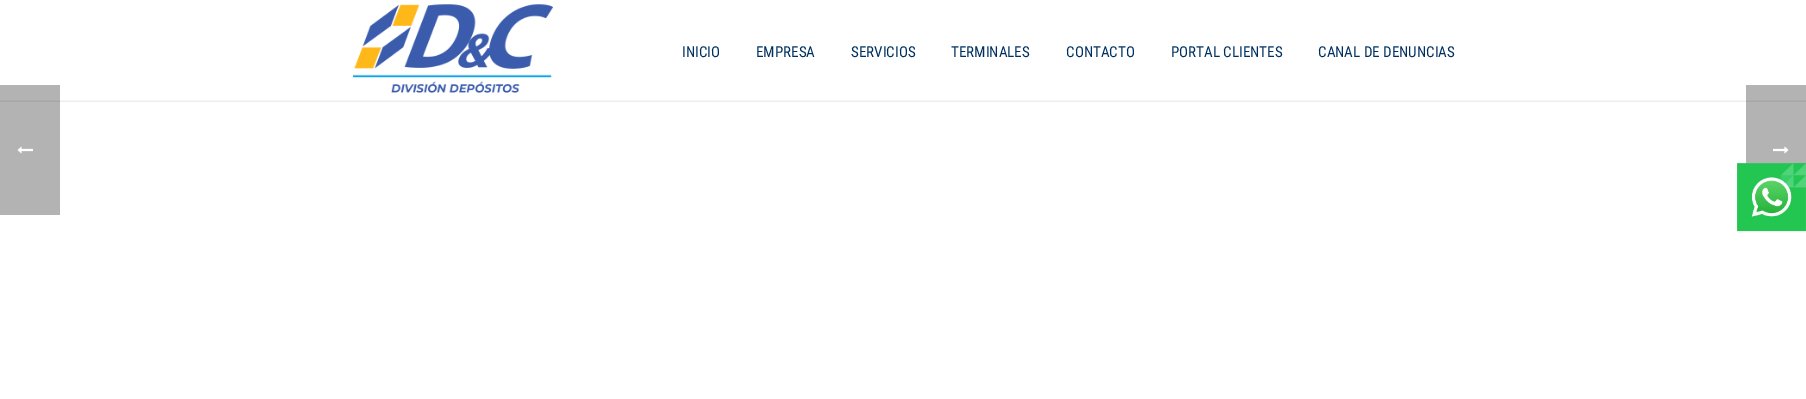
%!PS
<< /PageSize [1806 399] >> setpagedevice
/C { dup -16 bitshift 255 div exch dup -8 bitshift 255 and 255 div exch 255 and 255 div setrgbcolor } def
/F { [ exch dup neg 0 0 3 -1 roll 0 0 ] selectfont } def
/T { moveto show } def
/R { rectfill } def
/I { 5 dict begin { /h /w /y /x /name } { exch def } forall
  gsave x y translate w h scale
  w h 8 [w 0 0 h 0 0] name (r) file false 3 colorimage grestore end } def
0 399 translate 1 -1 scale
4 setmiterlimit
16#FFFFFF C
0 0 1806 399 R
16#B3B3B3 C
1746 102 60 62 R
0 102 60 113 R
16#F7F7F7 C
60 100 1686 1 R
16#ADADAD C
1746 100 60 1 R
0 100 60 1 R
16#EDEDED C
60 101 1686 1 R
16#A6A6A6 C
1746 101 60 1 R
0 101 60 1 R
(1.rgb) 353 4 200 89 I
/RobotoCondensed-Regular 15 F
16#003061 C
(INICIO) 682 57 T
(EMPRESA) 756 57 T
(SERVICIOS) 851 57 T
(TERMINALES) 951 57 T
(CONTACTO) 1066 57 T
(PORTAL CLIENTES) 1171 57 T
(CANAL DE DENUNCIAS) 1318 57 T
16#B3B3B3 C
1746 85 60 15 R
0 85 60 15 R
(2.rgb) 17 146 16 8 I
(3.rgb) 1773 146 16 8 I
(4.rgb) 1737 163 69 69 I
showpage
